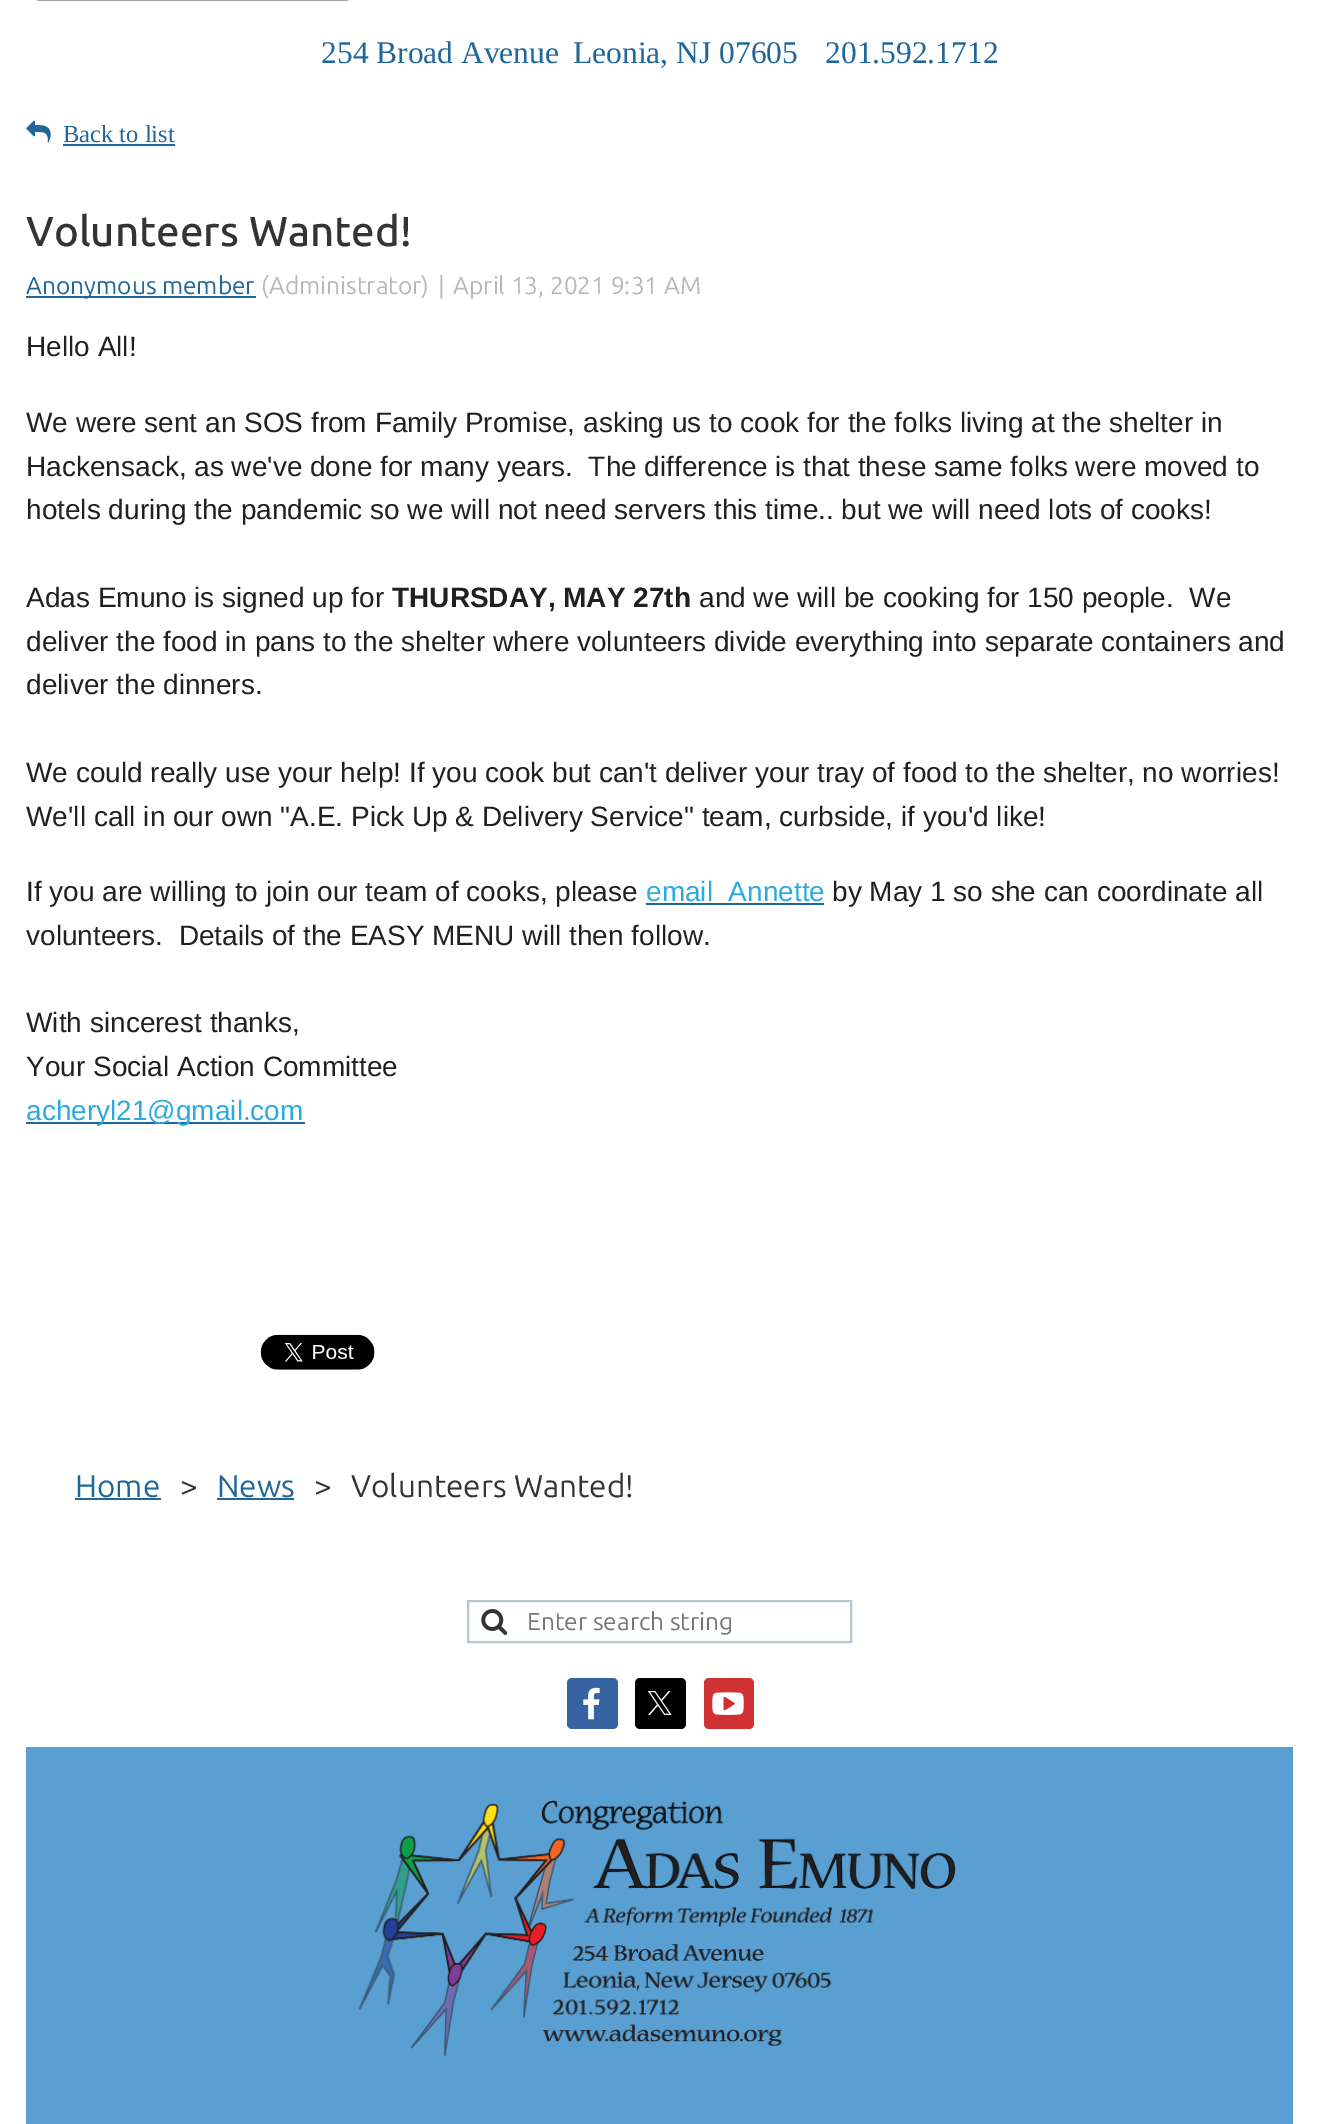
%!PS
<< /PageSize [1319 2124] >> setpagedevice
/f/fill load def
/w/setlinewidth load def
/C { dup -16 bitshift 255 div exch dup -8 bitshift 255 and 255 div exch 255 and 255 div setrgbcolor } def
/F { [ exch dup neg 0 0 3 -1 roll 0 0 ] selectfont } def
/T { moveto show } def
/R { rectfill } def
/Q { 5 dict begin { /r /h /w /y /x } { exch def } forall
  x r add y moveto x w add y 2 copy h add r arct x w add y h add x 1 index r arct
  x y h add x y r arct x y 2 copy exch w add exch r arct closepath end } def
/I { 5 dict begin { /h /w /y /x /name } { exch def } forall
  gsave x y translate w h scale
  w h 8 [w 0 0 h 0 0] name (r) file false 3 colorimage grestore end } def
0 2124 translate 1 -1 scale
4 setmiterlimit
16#FFFFFF C
0 0 1319 2124 R
(1.rgb) 35 0 315 1 I
/LiberationSerif-Regular 31.5 F
16#206699 C
(254 Broad Avenue) 321 63 T
(Leonia, NJ 07605) 573 63 T
(201.592.1712) 825 63 T
(2.rgb) 26 120 25 23 I
/LiberationSerif-Regular 24.5 F
(Back to list) 63 142 T
63 144 112 2 R
/Ubuntu-Medium 42 F
16#333333 C
(Volunteers Wanted!) 26 246 T
16#206699 C
26 296 230 2 R
/Ubuntu-Regular 24.5 F
(Anonymous member) 26 294 T
16#B7B7B7 C
(\(Administrator\)) 261 294 T
(|) 438 294 T
(April 13, 2021 9:31 AM) 453 294 T
/LiberationSans-Regular 28 F
16#202020 C
(Hello All!) 26 356 T
(We were sent an SOS from Family Promise, asking us to cook for the folks living at the shelter in) 26 432 T
(Hackensack, as we've done for many years.  The difference is that these same folks were moved to) 26 476 T
(hotels during the pandemic so we will not need servers this time.. but we will need lots of cooks!) 26 519 T
(Adas Emuno is signed up for) 26 607 T
/LiberationSans-Bold 28 F
(THURSDAY, MAY 27th) 392 607 T
/LiberationSans-Regular 28 F
(and we will be cooking for 150 people.  We) 699 607 T
(deliver the food in pans to the shelter where volunteers divide everything into separate containers and) 26 651 T
(deliver the dinners.) 26 694 T
(We could really use your help! If you cook but can't deliver your tray of food to the shelter, no worries!) 26 782 T
(We'll call in our own "A.E. Pick Up & Delivery Service" team, curbside, if you'd like!) 26 826 T
(If you are willing to join our team of cooks, please) 26 901 T
16#2BAADF C
(email  Annette) 646 901 T
16#206699 C
646 903 178 2 R
16#202020 C
(by May 1 so she can coordinate all) 832 901 T
(volunteers.  Details of the EASY MENU will then follow.) 26 945 T
(With sincerest thanks,) 26 1032 T
(Your Social Action Committee) 26 1076 T
16#206699 C
26 1122 279 2 R
16#2BAADF C
(acheryl21@gmail.com) 26 1120 T
(3.rgb) 260 1334 115 36 I
/Ubuntu-Regular 31.5 F
16#206699 C
(Home) 75 1497 T
75 1498 86 2 R
16#333333 C
(>) 180 1497 T
16#206699 C
(News) 217 1497 T
217 1498 77 2 R
16#333333 C
(>) 314 1497 T
(Volunteers Wanted!) 351 1497 T
16#B8C6CD C
2 w
468 1601 383 41 rectstroke
(4.rgb) 481 1609 27 26 I
/Ubuntu-Regular 24.5 F
16#757575 C
(Enter search string) 527 1630 T
16#3664A2 C
567 1678 51 51 5 Q f
(5.rgb) 583 1687 17 33 I
16#000000 C
635 1678 51 51 5 Q f
(6.rgb) 647 1691 25 24 I
16#D03133 C
704 1678 50 51 5 Q f
(7.rgb) 712 1692 32 23 I
16#599FD2 C
26 1747 1267 377 R
(8.rgb) 358 1800 598 256 I
showpage
